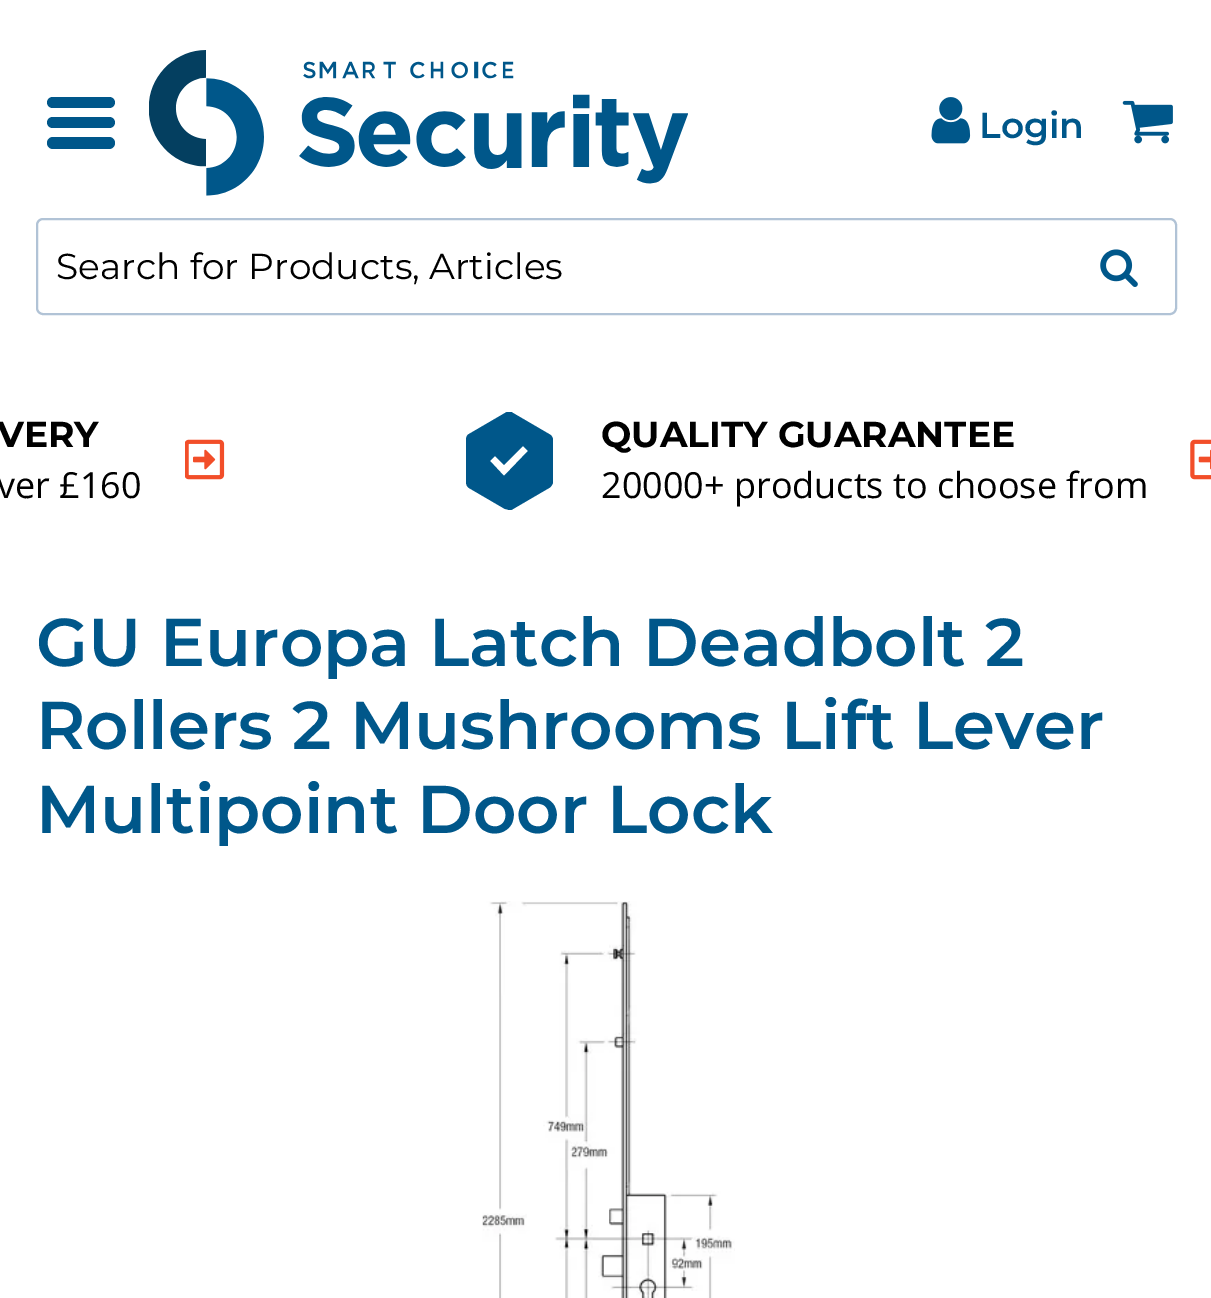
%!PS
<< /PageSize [1211 1298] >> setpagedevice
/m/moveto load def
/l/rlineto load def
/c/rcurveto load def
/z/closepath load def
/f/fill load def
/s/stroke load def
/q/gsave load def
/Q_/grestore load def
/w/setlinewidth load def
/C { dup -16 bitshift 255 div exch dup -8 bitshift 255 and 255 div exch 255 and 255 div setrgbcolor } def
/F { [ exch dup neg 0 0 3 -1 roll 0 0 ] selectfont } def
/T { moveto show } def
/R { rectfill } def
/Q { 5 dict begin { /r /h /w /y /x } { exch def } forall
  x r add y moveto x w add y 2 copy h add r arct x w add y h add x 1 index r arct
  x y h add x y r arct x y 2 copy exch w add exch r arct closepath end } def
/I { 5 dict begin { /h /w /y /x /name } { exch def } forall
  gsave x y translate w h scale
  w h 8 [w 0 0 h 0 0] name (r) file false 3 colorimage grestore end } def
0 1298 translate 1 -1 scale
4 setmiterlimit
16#FFFFFF C
0 0 1211 1298 R
16#00578A C
47 97 68 11 5.5 Q f
47 117 68 11 5.5 Q f
47 137 68 12 6 Q f
(1.rgb) 149 50 539 146 I
(2.rgb) 931 97 40 47 I
/Montserrat-Thin 36 F
(Login) 979 138 T
(3.rgb) 1122 100 51 44 I
16#B1C3D6 C
2 w
37 219 1139 95 6 Q s
/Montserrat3-Thin 36 F
16#000000 C
(Search for Products, Articles) 56 279 T
(4.rgb) 1100 249 38 38 I
/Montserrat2-Thin 36 F
(VERY) -3 447 T
/OpenSans-Regular 36 F
(ver £160) -3 498 T
(5.rgb) 185 439 40 41 I
q
466 412 88 99 rectclip
16#00578A C
505 413 m 3 -2 6 -2 8 0 c 36 21 l 2 1 4 3 4 6 c 0 42 l 0 2 -2 5 -4 6 c -36 21 l -1 1 -2 1 -4 1 c -1 0 -2 -1 -4 -1 c -36 -21 l -2 -1 -3 -4 -3 -6 c 0 -42 l 0 -3 1 -5 3 -6 c z 490 461 m 14 15 l 24 -25 l -5 -5 l -19 19 l -9 -9 l z eofill
Q_
/Montserrat2-Thin 36 F
(QUALITY GUARANTEE) 601 447 T
/OpenSans-Regular 36 F
(20000+ products to choose from) 601 498 T
(6.rgb) 1190 439 21 41 I
/Montserrat-Thin 67.5 F
16#00578A C
(GU Europa Latch Deadbolt 2) 36 666 T
(Rollers 2 Mushrooms Lift Lever) 36 749 T
(Multipoint Door Lock) 36 833 T
(7.rgb) 482 901 253 397 I
showpage
